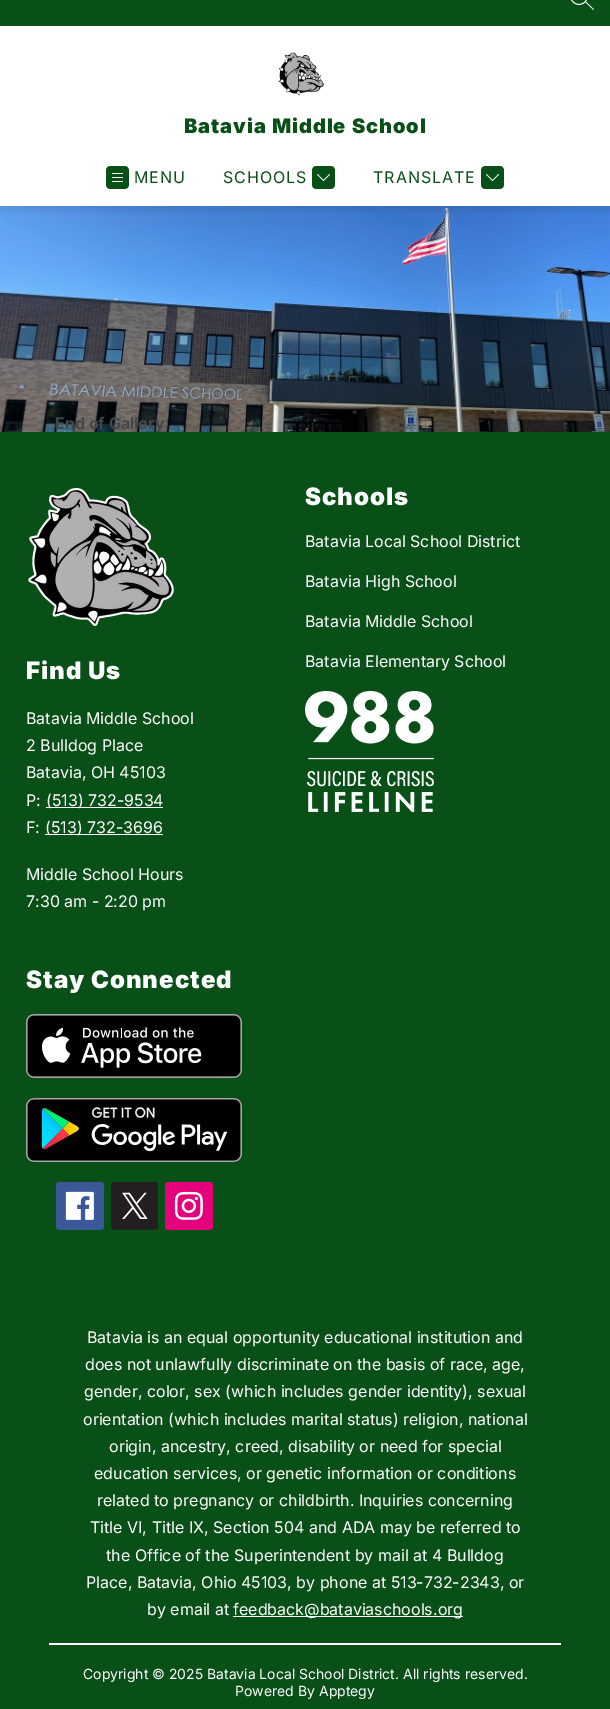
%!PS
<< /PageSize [610 1709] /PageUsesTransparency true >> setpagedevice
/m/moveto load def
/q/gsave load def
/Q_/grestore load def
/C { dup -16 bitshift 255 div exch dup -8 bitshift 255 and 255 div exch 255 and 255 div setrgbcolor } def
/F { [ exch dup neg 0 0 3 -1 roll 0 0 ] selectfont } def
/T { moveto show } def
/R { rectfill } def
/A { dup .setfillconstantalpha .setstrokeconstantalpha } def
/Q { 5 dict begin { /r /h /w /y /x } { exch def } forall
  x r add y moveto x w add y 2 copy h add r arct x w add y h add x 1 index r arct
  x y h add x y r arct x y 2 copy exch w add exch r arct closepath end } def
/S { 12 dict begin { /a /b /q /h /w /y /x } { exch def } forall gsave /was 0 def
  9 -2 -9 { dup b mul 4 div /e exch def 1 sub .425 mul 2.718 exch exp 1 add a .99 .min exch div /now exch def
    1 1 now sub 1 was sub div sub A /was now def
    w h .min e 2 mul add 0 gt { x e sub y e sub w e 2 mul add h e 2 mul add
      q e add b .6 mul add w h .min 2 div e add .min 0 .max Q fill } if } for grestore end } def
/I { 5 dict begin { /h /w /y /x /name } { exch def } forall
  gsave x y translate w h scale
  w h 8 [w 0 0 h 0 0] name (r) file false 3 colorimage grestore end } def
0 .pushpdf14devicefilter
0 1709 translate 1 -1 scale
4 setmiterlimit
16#FFFFFF C
0 0 610 1709 R
(5.rgb) 0 206 610 226 I
q
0 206 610 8 rectclip
16#000000 C
0 -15 610 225 0 5 .1 S
Q_
16#094F18 C
0 0 610 26 R
(1.rgb) 571 0 23 10 I
(2.rgb) 278 52 46 44 I
/Inter-Black 20 F
184 133 m 1 0 (Batavia Middle School) ashow
(3.rgb) 106 166 23 23 I
/Inter-Regular 16 F
134 183 m 1 0 (MENU) ashow
223 183 m 1 0 (SCHOOLS) ashow
(4.rgb) 312 166 23 23 I
373 183 m 1 0 (TRANSLATE) ashow
(4.rgb) 481 166 23 23 I
0 432 610 1277 R
/Inter-Bold 16 F
16#424849 C
(End of Gallery) 55 429 T
/Inter-Black 24 F
16#FFFFFF C
305 505 m 1 0 (Schools) ashow
/Inter-Regular 16 F
(Batavia Local School District) 305 547 T
(Batavia High School) 305 587 T
(Batavia Middle School) 305 627 T
(Batavia Elementary School) 305 667 T
(6.rgb) 305 691 129 121 I
(7.rgb) 28 487 146 139 I
/Inter-Black 24 F
26 679 m 1 0 (Find Us) ashow
/Inter-Regular 16 F
(Batavia Middle School) 26 724 T
(2 Bulldog Place) 26 751 T
(Batavia, OH 45103) 26 778 T
(P:) 26 806 T
46 807 117 1 R
(\(513\) 732-9534) 46 806 T
(F:) 26 833 T
45 834 118 1 R
(\(513\) 732-3696) 45 833 T
(Middle School Hours) 26 880 T
(7:30 am - 2:20 pm) 26 907 T
/Inter-Black 24 F
26 988 m 1 0 (Stay Connected) ashow
(8.rgb) 26 1014 216 64 I
(9.rgb) 26 1098 216 64 I
(10.rgb) 56 1182 48 48 I
(11.rgb) 111 1182 47 48 I
(12.rgb) 165 1182 48 48 I
/Inter-Regular 16 F
(Batavia is an equal opportunity educational institution and) 87 1343 T
(does not unlawfully discriminate on the basis of race, age,) 85 1370 T
(gender, color, sex \(which includes gender identity\), sexual) 84 1397 T
(orientation \(which includes marital status\) religion, national) 83 1425 T
(origin, ancestry, creed, disability or need for special) 109 1452 T
(education services, or genetic information or conditions) 94 1479 T
(related to pregnancy or childbirth. Inquiries concerning) 97 1506 T
(Title VI, Title IX, Section 504 and ADA may be referred to) 90 1533 T
(the Office of the Superintendent by mail at 4 Bulldog) 106 1561 T
(Place, Batavia, Ohio 45103, by phone at 513-732-2343, or) 86 1588 T
(by email at) 147 1615 T
233 1616 230 1 R
(feedback@bataviaschools.org) 233 1615 T
49 1643 512 2 R
/Inter-Regular 14 F
(Copyright © 2025 Batavia Local School District. All rights reserved.) 83 1679 T
(Powered By Apptegy) 235 1696 T
.poppdf14devicefilter showpage
